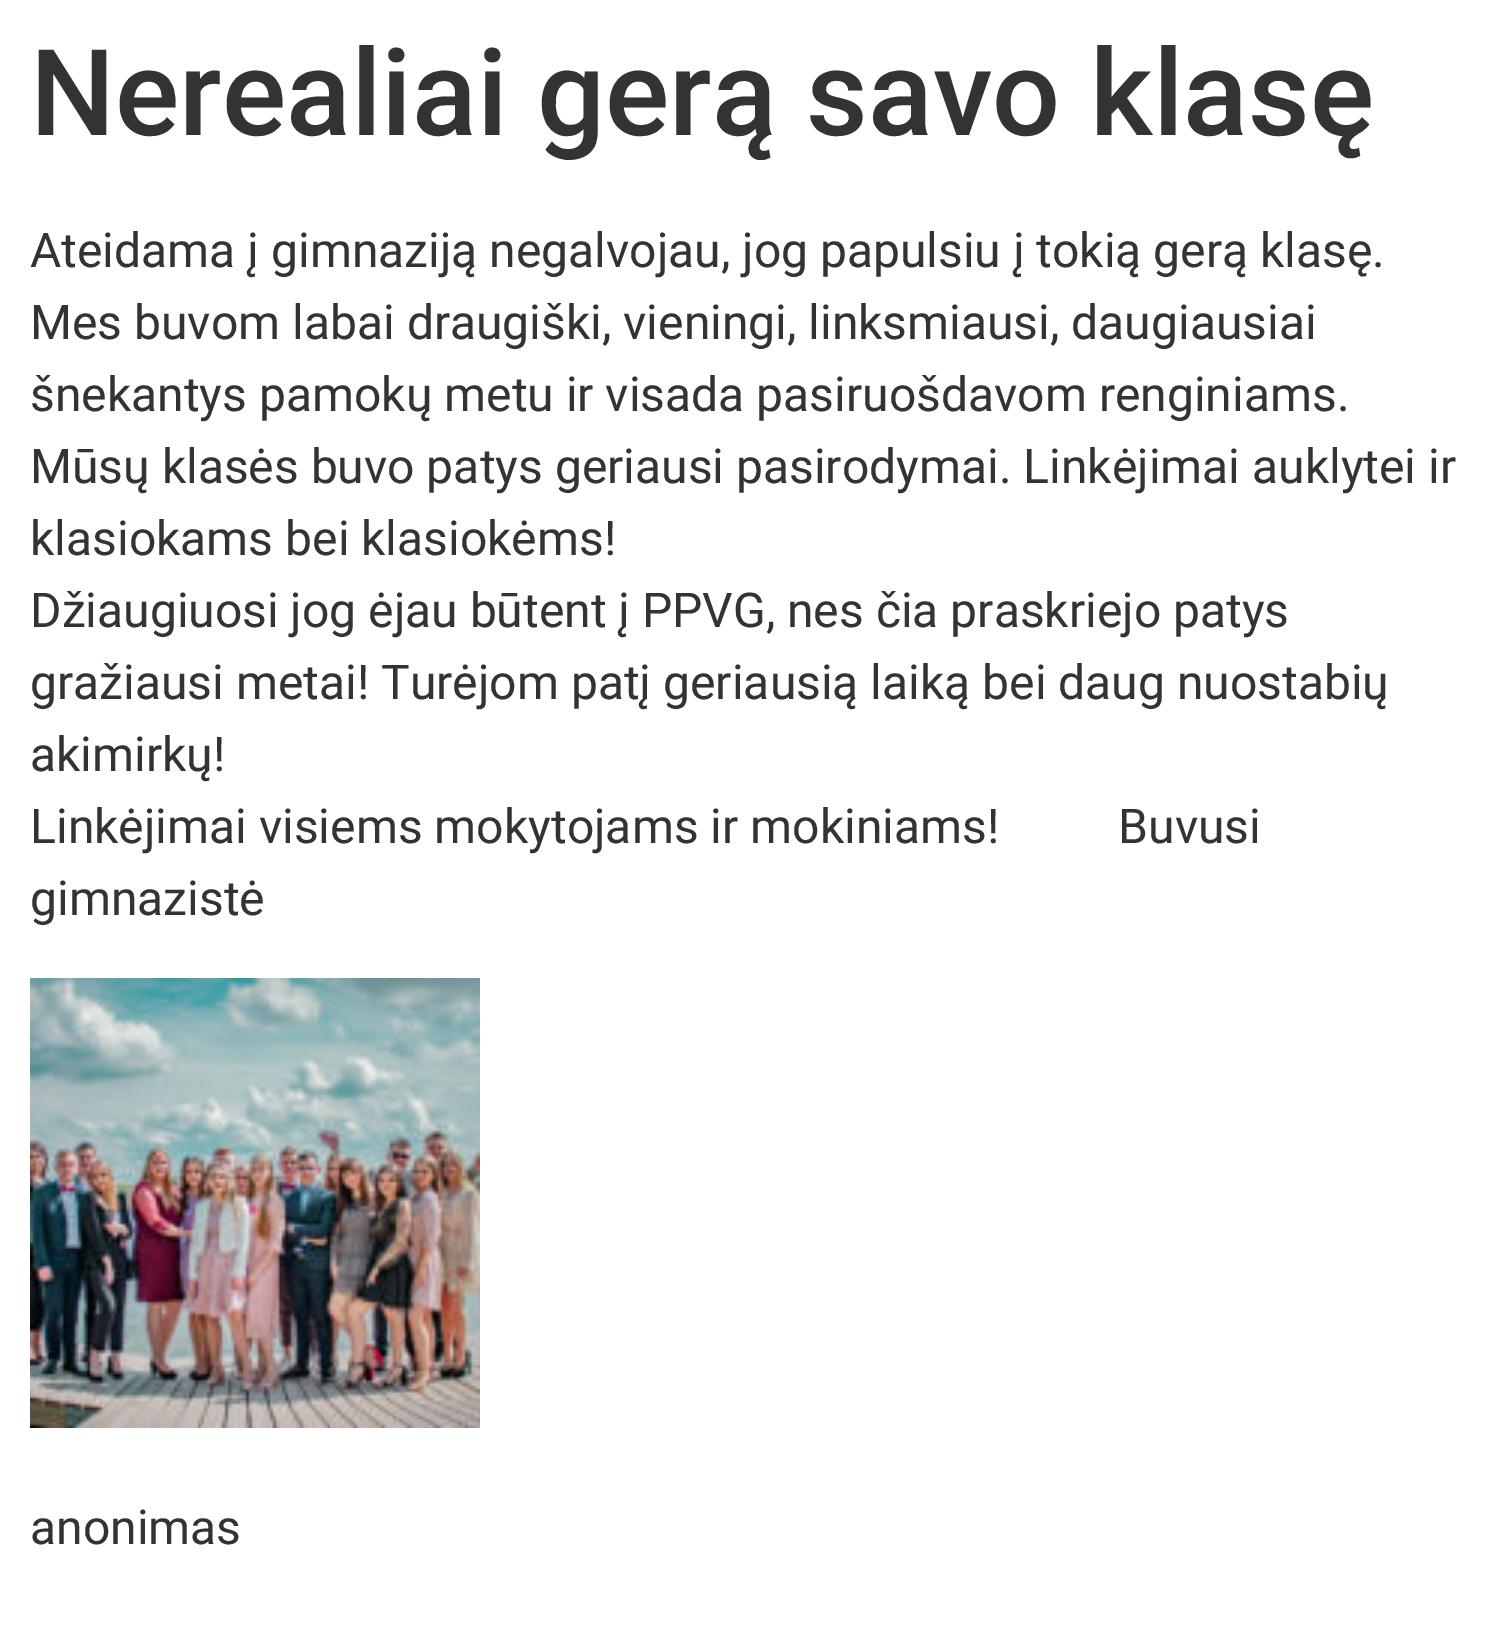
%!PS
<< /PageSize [1502 1651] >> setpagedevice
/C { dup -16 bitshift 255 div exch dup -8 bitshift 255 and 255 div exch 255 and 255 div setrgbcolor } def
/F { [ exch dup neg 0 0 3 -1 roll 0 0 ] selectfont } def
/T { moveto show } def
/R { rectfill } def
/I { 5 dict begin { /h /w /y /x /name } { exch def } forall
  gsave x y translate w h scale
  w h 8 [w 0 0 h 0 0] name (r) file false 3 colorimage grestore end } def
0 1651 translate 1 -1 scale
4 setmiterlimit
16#FFFFFF C
0 0 1502 1651 R
/Roboto-Medium 120 F
16#333333 C
(Nerealiai gerą savo klasę) 30 135 T
/Roboto-Regular 48 F
(Ateidama į gimnaziją negalvojau, jog papulsiu į tokią gerą klasę.) 30 267 T
(Mes buvom labai draugiški, vieningi, linksmiausi, daugiausiai) 30 339 T
(šnekantys pamokų metu ir visada pasiruošdavom renginiams.) 30 411 T
(Mūsų klasės buvo patys geriausi pasirodymai. Linkėjimai auklytei ir) 30 483 T
(klasiokams bei klasiokėms!) 30 555 T
(Džiaugiuosi jog ėjau būtent į PPVG, nes čia praskriejo patys) 30 627 T
(gražiausi metai! Turėjom patį geriausią laiką bei daug nuostabių) 30 699 T
(akimirkų!) 30 771 T
(Linkėjimai visiems mokytojams ir mokiniams!          Buvusi) 30 843 T
(gimnazistė) 30 915 T
(1.rgb) 30 978 450 450 I
(anonimas) 30 1544 T
showpage
